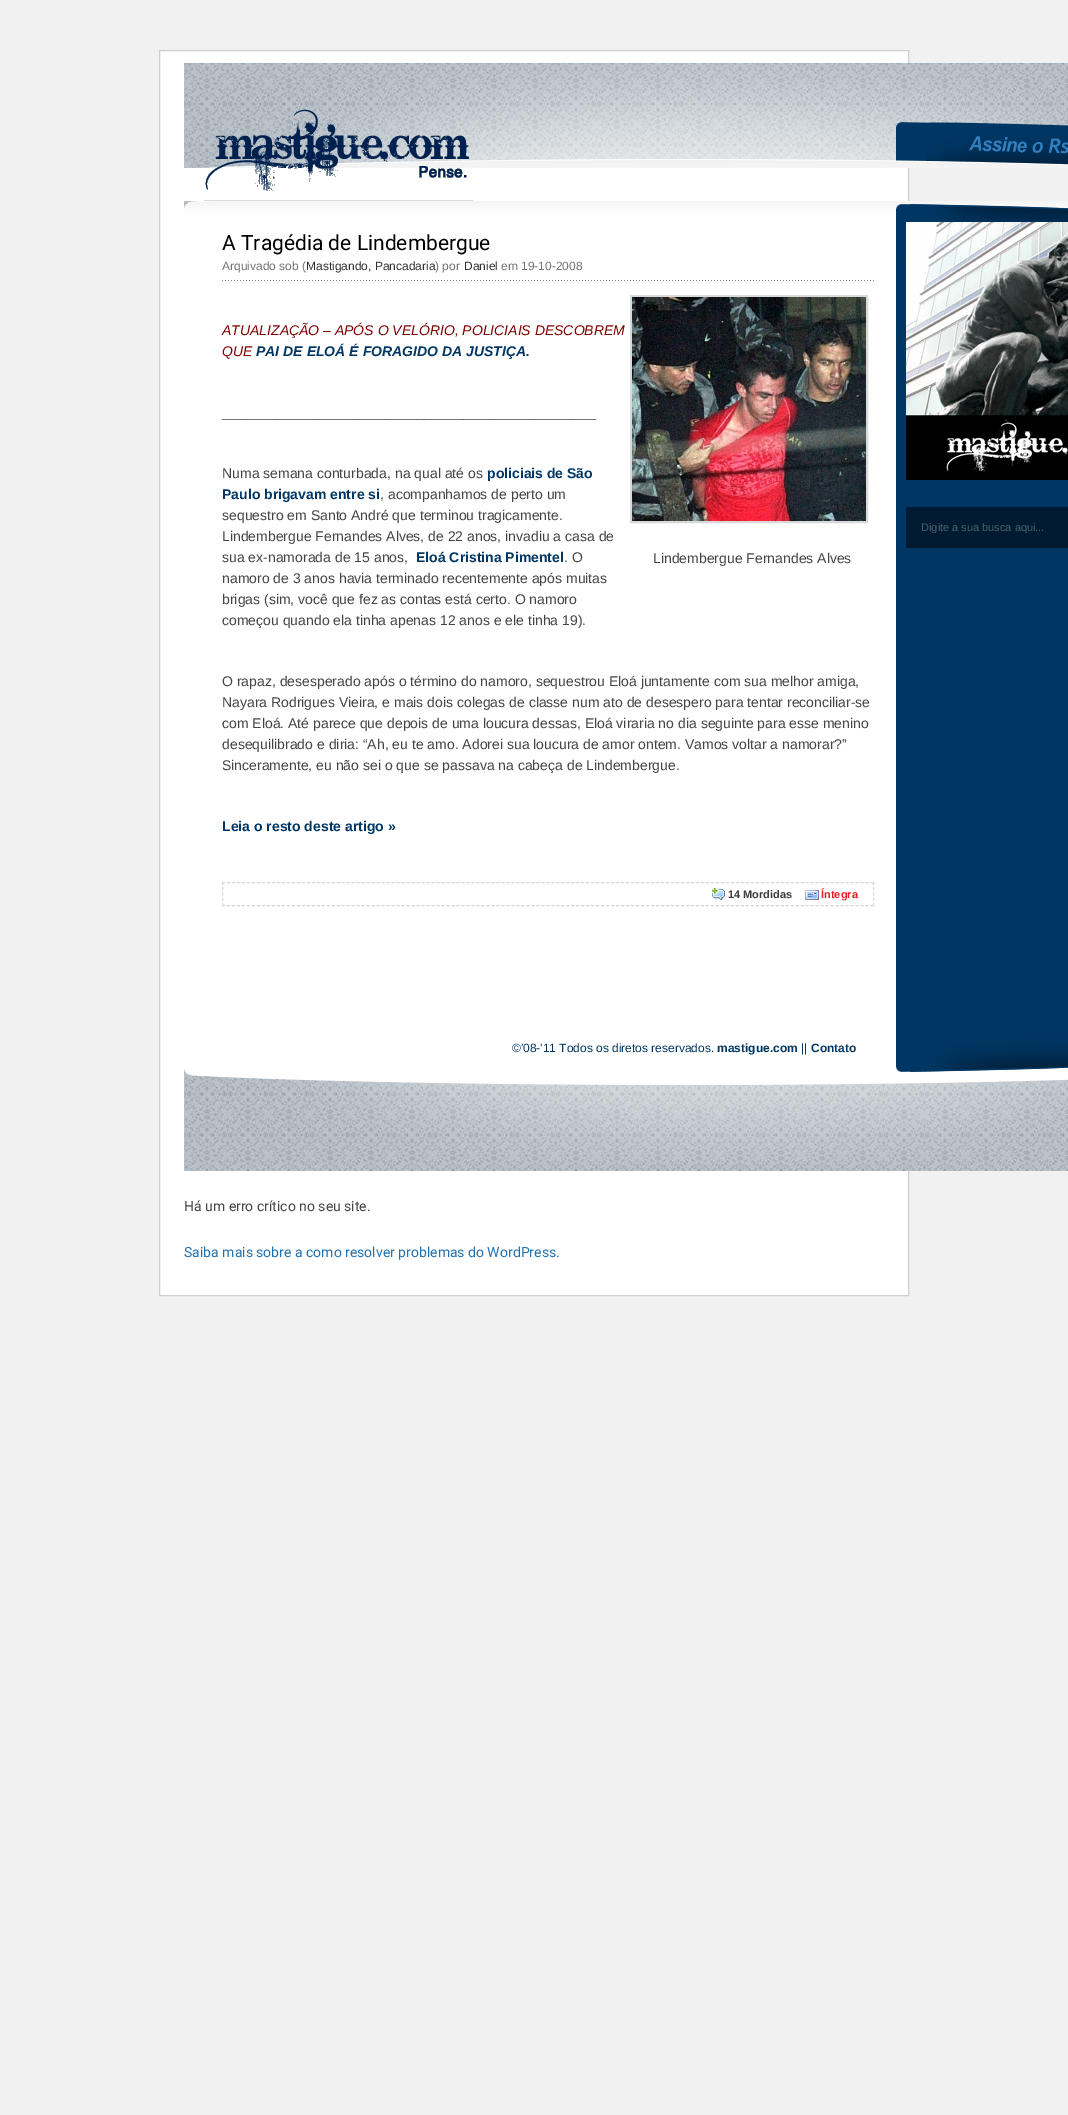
%!PS
<< /PageSize [1068 2115] >> setpagedevice
/m/moveto load def
/l/rlineto load def
/z/closepath load def
/f/fill load def
/s/stroke load def
/q/gsave load def
/Q_/grestore load def
/w/setlinewidth load def
/C { dup -16 bitshift 255 div exch dup -8 bitshift 255 and 255 div exch 255 and 255 div setrgbcolor } def
/F { [ exch dup neg 0 0 3 -1 roll 0 0 ] selectfont } def
/T { moveto show } def
/R { rectfill } def
/I { 5 dict begin { /h /w /y /x /name } { exch def } forall
  gsave x y translate w h scale
  w h 8 [w 0 0 h 0 0] name (r) file false 3 colorimage grestore end } def
0 2115 translate 1 -1 scale
4 setmiterlimit
16#F1F1F1 C
0 0 1068 2115 R
16#FFFFFF C
159.5 50.5 m 749 0 l 0 1245 l -749 0 l z q f Q_
16#CCD0D4 C
s
(1.rgb) 184 63 884 105 I
16#DADADA C
204 200 269 1 R
(2.rgb) 205 108 264 83 I
(3.rgb) 926 123 142 42 I
16#003663 C
896 231 172 800 R
(4.rgb) 184 201 884 30 I
/Roboto-Regular 21 F
16#000000 C
(A Tragédia de Lindembergue) 222 250 T
(5.rgb) 222 280 652 1 I
/LiberationSans-Regular 12 F
16#737373 C
(Arquivado sob \() 222 270 T
16#303030 C
(Mastigando, Pancadaria) 306 270 T
16#737373 C
(\) por) 435 270 T
16#303030 C
(Daniel) 464 270 T
16#737373 C
(em 19-10-2008) 501 270 T
/LiberationSans-Italic 14 F
16#800000 C
(ATUALIZAÇÃO – APÓS O VELÓRIO, POLICIAIS DESCOBREM) 222 335 T
(QUE) 222 356 T
/LiberationSans-BoldItalic 14 F
16#003663 C
(PAI DE ELOÁ É FORAGIDO DA JUSTIÇA.) 256 356 T
/LiberationSans-Regular 14 F
16#444444 C
(________________________________________________) 222 417 T
(Numa semana conturbada, na qual até os) 222 478 T
/LiberationSans-Bold 14 F
16#003663 C
(policiais de São) 487 478 T
(Paulo brigavam entre si) 222 499 T
/LiberationSans-Regular 14 F
16#444444 C
(, acompanhamos de perto um) 380 499 T
(sequestro em Santo André que terminou tragicamente.) 222 520 T
(Lindembergue Fernandes Alves, de 22 anos, invadiu a casa de) 222 541 T
(sua ex-namorada de 15 anos,) 222 562 T
/LiberationSans-Bold 14 F
16#003663 C
(Eloá Cristina Pimentel) 416 562 T
/LiberationSans-Regular 14 F
16#444444 C
(. O) 564 562 T
(namoro de 3 anos havia terminado recentemente após muitas) 222 583 T
(brigas \(sim, você que fez as contas está certo. O namoro) 222 604 T
(começou quando ela tinha apenas 12 anos e ele tinha 19\).) 222 625 T
16#D9D9D9 C
2 w
631 296 236 226 rectstroke
(6.rgb) 632 297 234 224 I
16#444444 C
(Lindembergue Fernandes Alves) 653 563 T
(O rapaz, desesperado após o término do namoro, sequestrou Eloá juntamente com sua melhor amiga,) 222 686 T
(Nayara Rodrigues Vieira, e mais dois colegas de classe num ato de desespero para tentar reconciliar-se) 222 707 T
(com Eloá. Até parece que depois de uma loucura dessas, Eloá viraria no dia seguinte para esse menino) 222 728 T
(desequilibrado e diria: “Ah, eu te amo. Adorei sua loucura de amor ontem. Vamos voltar a namorar?”) 222 749 T
(Sinceramente, eu não sei o que se passava na cabeça de Lindembergue.) 222 770 T
/LiberationSans-Bold 14 F
16#003663 C
(Leia o resto deste artigo ») 222 831 T
16#D6D6D6 C
1 w
[3 1.99] 0 setdash
222 882.5 m 652 0 l s
[3 2.25] 0 setdash
873.5 882 m 0 24 l s
[3 1.99] 0 setdash
222 905.5 m 652 0 l s
[3 2.25] 0 setdash
222.5 882 m 0 24 l s
(7.rgb) 712 888 13 12 I
/LiberationSans-Bold 11 F
16#3D3D3D C
(14 Mordidas) 728 898 T
(8.rgb) 805 890 14 10 I
16#ED1C24 C
(Íntegra) 821 898 T
(9.rgb) 906 222 162 258 I
16#001B31 C
906 507 162 41 R
q
921 521 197 12 rectclip
/LiberationSans-Regular 11 F
16#4D606F C
(Digite a sua busca aqui...) 921 531 T
Q_
(10.rgb) 184 1031 884 140 I
/LiberationSans-Regular 12 F
16#003663 C
(©'08-'11 Todos os diretos reservados.) 512 1052 T
/LiberationSans-Bold 12 F
(mastigue.com) 717 1052 T
/LiberationSans-Regular 12 F
(||) 801 1052 T
/LiberationSans-Bold 12 F
(Contato) 811 1052 T
/Roboto-Regular 14 F
16#444444 C
(Há um erro crítico no seu site.) 184 1211 T
16#2271B1 C
(Saiba mais sobre a como resolver problemas do WordPress.) 184 1257 T
showpage
